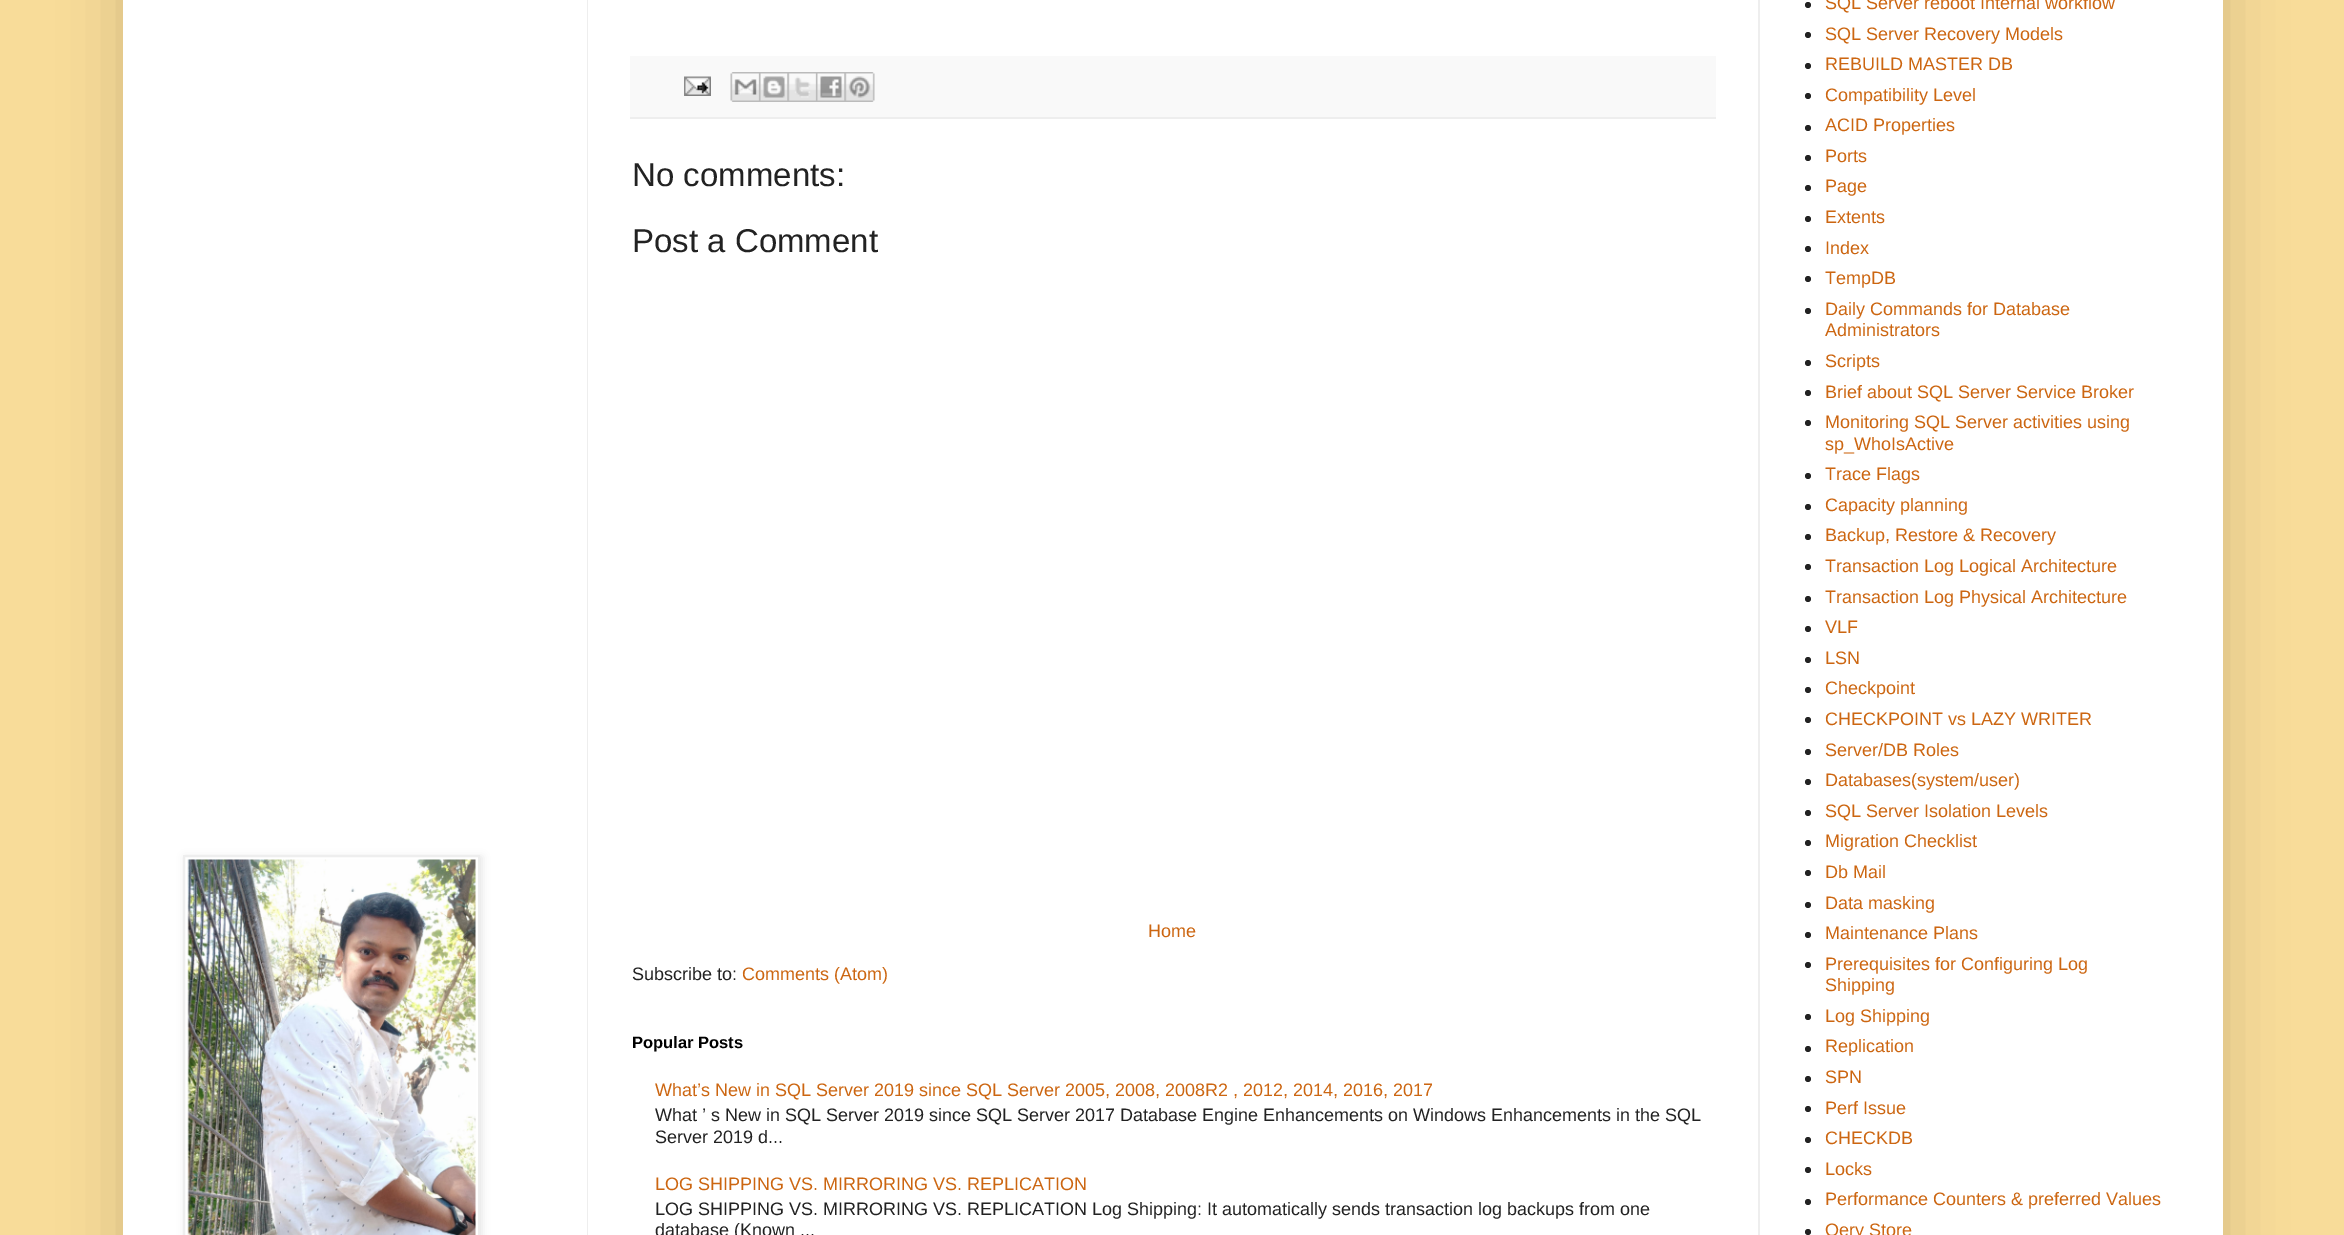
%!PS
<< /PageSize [2344 1235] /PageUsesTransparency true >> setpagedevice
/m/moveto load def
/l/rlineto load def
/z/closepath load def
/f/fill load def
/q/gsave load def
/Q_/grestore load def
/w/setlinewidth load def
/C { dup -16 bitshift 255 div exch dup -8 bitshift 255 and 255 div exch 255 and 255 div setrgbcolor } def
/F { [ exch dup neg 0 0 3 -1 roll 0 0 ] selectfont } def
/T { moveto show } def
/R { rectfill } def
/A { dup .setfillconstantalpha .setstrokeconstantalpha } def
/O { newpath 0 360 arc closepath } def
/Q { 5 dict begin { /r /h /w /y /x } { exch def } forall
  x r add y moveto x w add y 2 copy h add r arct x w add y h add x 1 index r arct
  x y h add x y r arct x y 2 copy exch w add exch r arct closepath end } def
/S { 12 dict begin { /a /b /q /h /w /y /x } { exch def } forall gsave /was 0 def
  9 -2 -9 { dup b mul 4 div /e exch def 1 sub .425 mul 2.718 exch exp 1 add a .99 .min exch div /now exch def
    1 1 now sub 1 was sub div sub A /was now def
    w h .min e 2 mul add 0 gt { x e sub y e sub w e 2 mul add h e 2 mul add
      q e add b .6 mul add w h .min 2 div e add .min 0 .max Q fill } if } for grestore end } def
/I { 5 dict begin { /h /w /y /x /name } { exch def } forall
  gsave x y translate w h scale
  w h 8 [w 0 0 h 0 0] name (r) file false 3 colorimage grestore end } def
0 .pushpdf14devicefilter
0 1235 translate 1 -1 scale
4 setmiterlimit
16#F8DC99 C
0 0 2344 1235 R
16#000000 C
123 -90 2100 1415 0 30 .15 S
16#FFFFFF C
123 0 2100 1235 R
16#EEEEEE C
587 0 1 1235 R
q
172 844 m 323 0 l 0 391 l -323 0 l z 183 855 m 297 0 l 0 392 l -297 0 l z eoclip newpath
16#000000 C
185 857 297 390 0 4 .1 S
Q_
2 w
184 856 295 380 rectstroke
(1.rgb) 187 859 289 376 I
16#F9F9F9 C
630 56 1086 61 R
16#EEEEEE C
630 117 1086 2 R
(2.rgb) 684 76 27 20 I
(3.rgb) 730 72 29 30 I
(4.rgb) 759 72 29 30 I
(5.rgb) 787 72 29 30 I
(6.rgb) 816 72 29 30 I
(7.rgb) 844 72 31 30 I
/LiberationSans-Regular 33 F
16#222222 C
(No comments:) 632 186 T
(Post a Comment) 632 252 T
/LiberationSans-Regular 18 F
16#CC6611 C
(Home) 1148 937 T
16#222222 C
(Subscribe to:) 632 980 T
16#CC6611 C
(Comments \(Atom\)) 742 980 T
/LiberationSans-Bold 16.5 F
16#000000 C
(Popular Posts) 632 1048 T
/LiberationSans-Regular 18 F
16#CC6611 C
(What’s New in SQL Server 2019 since SQL Server 2005, 2008, 2008R2 , 2012, 2014, 2016, 2017) 655 1096 T
16#222222 C
(What ’ s New in SQL Server 2019 since SQL Server 2017 Database Engine Enhancements on Windows Enhancements in the SQL) 655 1121 T
(Server 2019 d...) 655 1143 T
16#CC6611 C
(LOG SHIPPING VS. MIRRORING VS. REPLICATION) 655 1190 T
16#222222 C
(LOG SHIPPING VS. MIRRORING VS. REPLICATION Log Shipping: It automatically sends transaction log backups from one) 655 1215 T
(database \(Known ...) 655 1236 T
1808 5 3 O f
16#CC6611 C
(SQL Server reboot Internal workflow) 1825 9 T
16#222222 C
1808 35 3 O f
16#CC6611 C
(SQL Server Recovery Models) 1825 40 T
16#222222 C
1808 66 3 O f
16#CC6611 C
(REBUILD MASTER DB) 1825 70 T
16#222222 C
1808 96 3 O f
16#CC6611 C
(Compatibility Level) 1825 101 T
16#222222 C
1808 128 3 O f
16#CC6611 C
(ACID Properties) 1825 131 T
16#222222 C
1808 158 3 O f
16#CC6611 C
(Ports) 1825 162 T
16#222222 C
1808 188 3 O f
16#CC6611 C
(Page) 1825 192 T
16#222222 C
1808 219 3 O f
16#CC6611 C
(Extents) 1825 223 T
16#222222 C
1808 249 3 O f
16#CC6611 C
(Index) 1825 254 T
16#222222 C
1808 279 3 O f
16#CC6611 C
(TempDB) 1825 284 T
16#222222 C
1808 311 3 O f
16#CC6611 C
(Daily Commands for Database) 1825 315 T
(Administrators) 1825 336 T
16#222222 C
1808 363 3 O f
16#CC6611 C
(Scripts) 1825 367 T
16#222222 C
1808 393 3 O f
16#CC6611 C
(Brief about SQL Server Service Broker) 1825 398 T
16#222222 C
1808 423 3 O f
16#CC6611 C
(Monitoring SQL Server activities using) 1825 428 T
(sp_WhoIsActive) 1825 450 T
16#222222 C
1808 476 3 O f
16#CC6611 C
(Trace Flags) 1825 480 T
16#222222 C
1808 507 3 O f
16#CC6611 C
(Capacity planning) 1825 511 T
16#222222 C
1808 537 3 O f
16#CC6611 C
(Backup, Restore & Recovery) 1825 541 T
16#222222 C
1808 567 3 O f
16#CC6611 C
(Transaction Log Logical Architecture) 1825 572 T
16#222222 C
1808 599 3 O f
16#CC6611 C
(Transaction Log Physical Architecture) 1825 603 T
16#222222 C
1808 629 3 O f
16#CC6611 C
(VLF) 1825 633 T
16#222222 C
1808 660 3 O f
16#CC6611 C
(LSN) 1825 664 T
16#222222 C
1808 690 3 O f
16#CC6611 C
(Checkpoint) 1825 694 T
16#222222 C
1808 720 3 O f
16#CC6611 C
(CHECKPOINT vs LAZY WRITER) 1825 725 T
16#222222 C
1808 752 3 O f
16#CC6611 C
(Server/DB Roles) 1825 756 T
16#222222 C
1808 782 3 O f
16#CC6611 C
(Databases\(system/user\)) 1825 786 T
16#222222 C
1808 813 3 O f
16#CC6611 C
(SQL Server Isolation Levels) 1825 817 T
16#222222 C
1808 843 3 O f
16#CC6611 C
(Migration Checklist) 1825 847 T
16#222222 C
1808 873 3 O f
16#CC6611 C
(Db Mail) 1825 878 T
16#222222 C
1808 905 3 O f
16#CC6611 C
(Data masking) 1825 909 T
16#222222 C
1808 935 3 O f
16#CC6611 C
(Maintenance Plans) 1825 939 T
16#222222 C
1808 965 3 O f
16#CC6611 C
(Prerequisites for Configuring Log) 1825 970 T
(Shipping) 1825 991 T
16#222222 C
1808 1017 3 O f
16#CC6611 C
(Log Shipping) 1825 1022 T
16#222222 C
1808 1049 3 O f
16#CC6611 C
(Replication) 1825 1052 T
16#222222 C
1808 1079 3 O f
16#CC6611 C
(SPN) 1825 1083 T
16#222222 C
1808 1109 3 O f
16#CC6611 C
(Perf Issue) 1825 1114 T
16#222222 C
1808 1140 3 O f
16#CC6611 C
(CHECKDB) 1825 1144 T
16#222222 C
1808 1170 3 O f
16#CC6611 C
(Locks) 1825 1175 T
16#222222 C
1808 1202 3 O f
16#CC6611 C
(Performance Counters & preferred Values) 1825 1205 T
16#222222 C
1808 1232 3 O f
16#CC6611 C
(Qery Store) 1825 1236 T
16#EEEEEE C
1758 0 2 1235 R
.poppdf14devicefilter showpage
